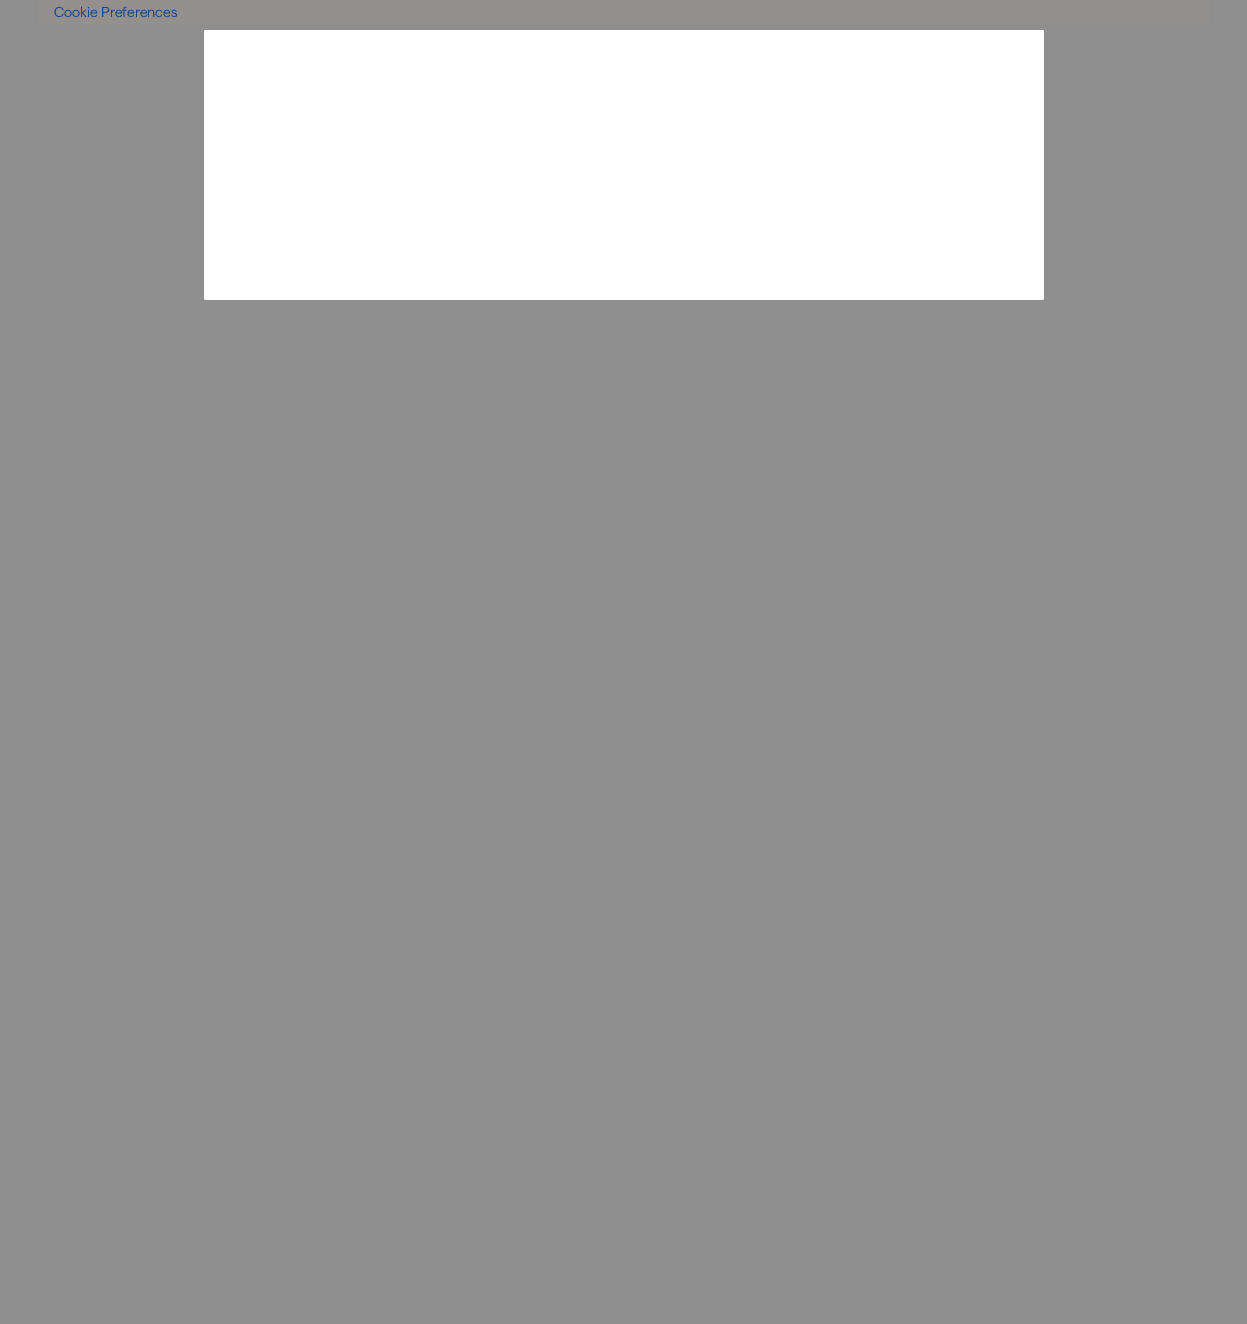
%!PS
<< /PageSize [1247 1324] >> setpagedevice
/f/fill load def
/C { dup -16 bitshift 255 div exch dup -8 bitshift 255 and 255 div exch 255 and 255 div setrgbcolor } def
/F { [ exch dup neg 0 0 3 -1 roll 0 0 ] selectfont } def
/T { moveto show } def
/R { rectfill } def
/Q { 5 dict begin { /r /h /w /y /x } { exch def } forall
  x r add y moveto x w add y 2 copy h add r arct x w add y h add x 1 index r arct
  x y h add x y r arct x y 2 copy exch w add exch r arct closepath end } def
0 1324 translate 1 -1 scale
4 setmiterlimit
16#8F8F8F C
0 0 1247 1324 R
16#93908D C
39 0 1170 24 R
/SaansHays-Regular 14 F
16#144599 C
(Cookie Preferences) 54 17 T
16#FFFFFF C
204 30 840 270 2 Q f
showpage
